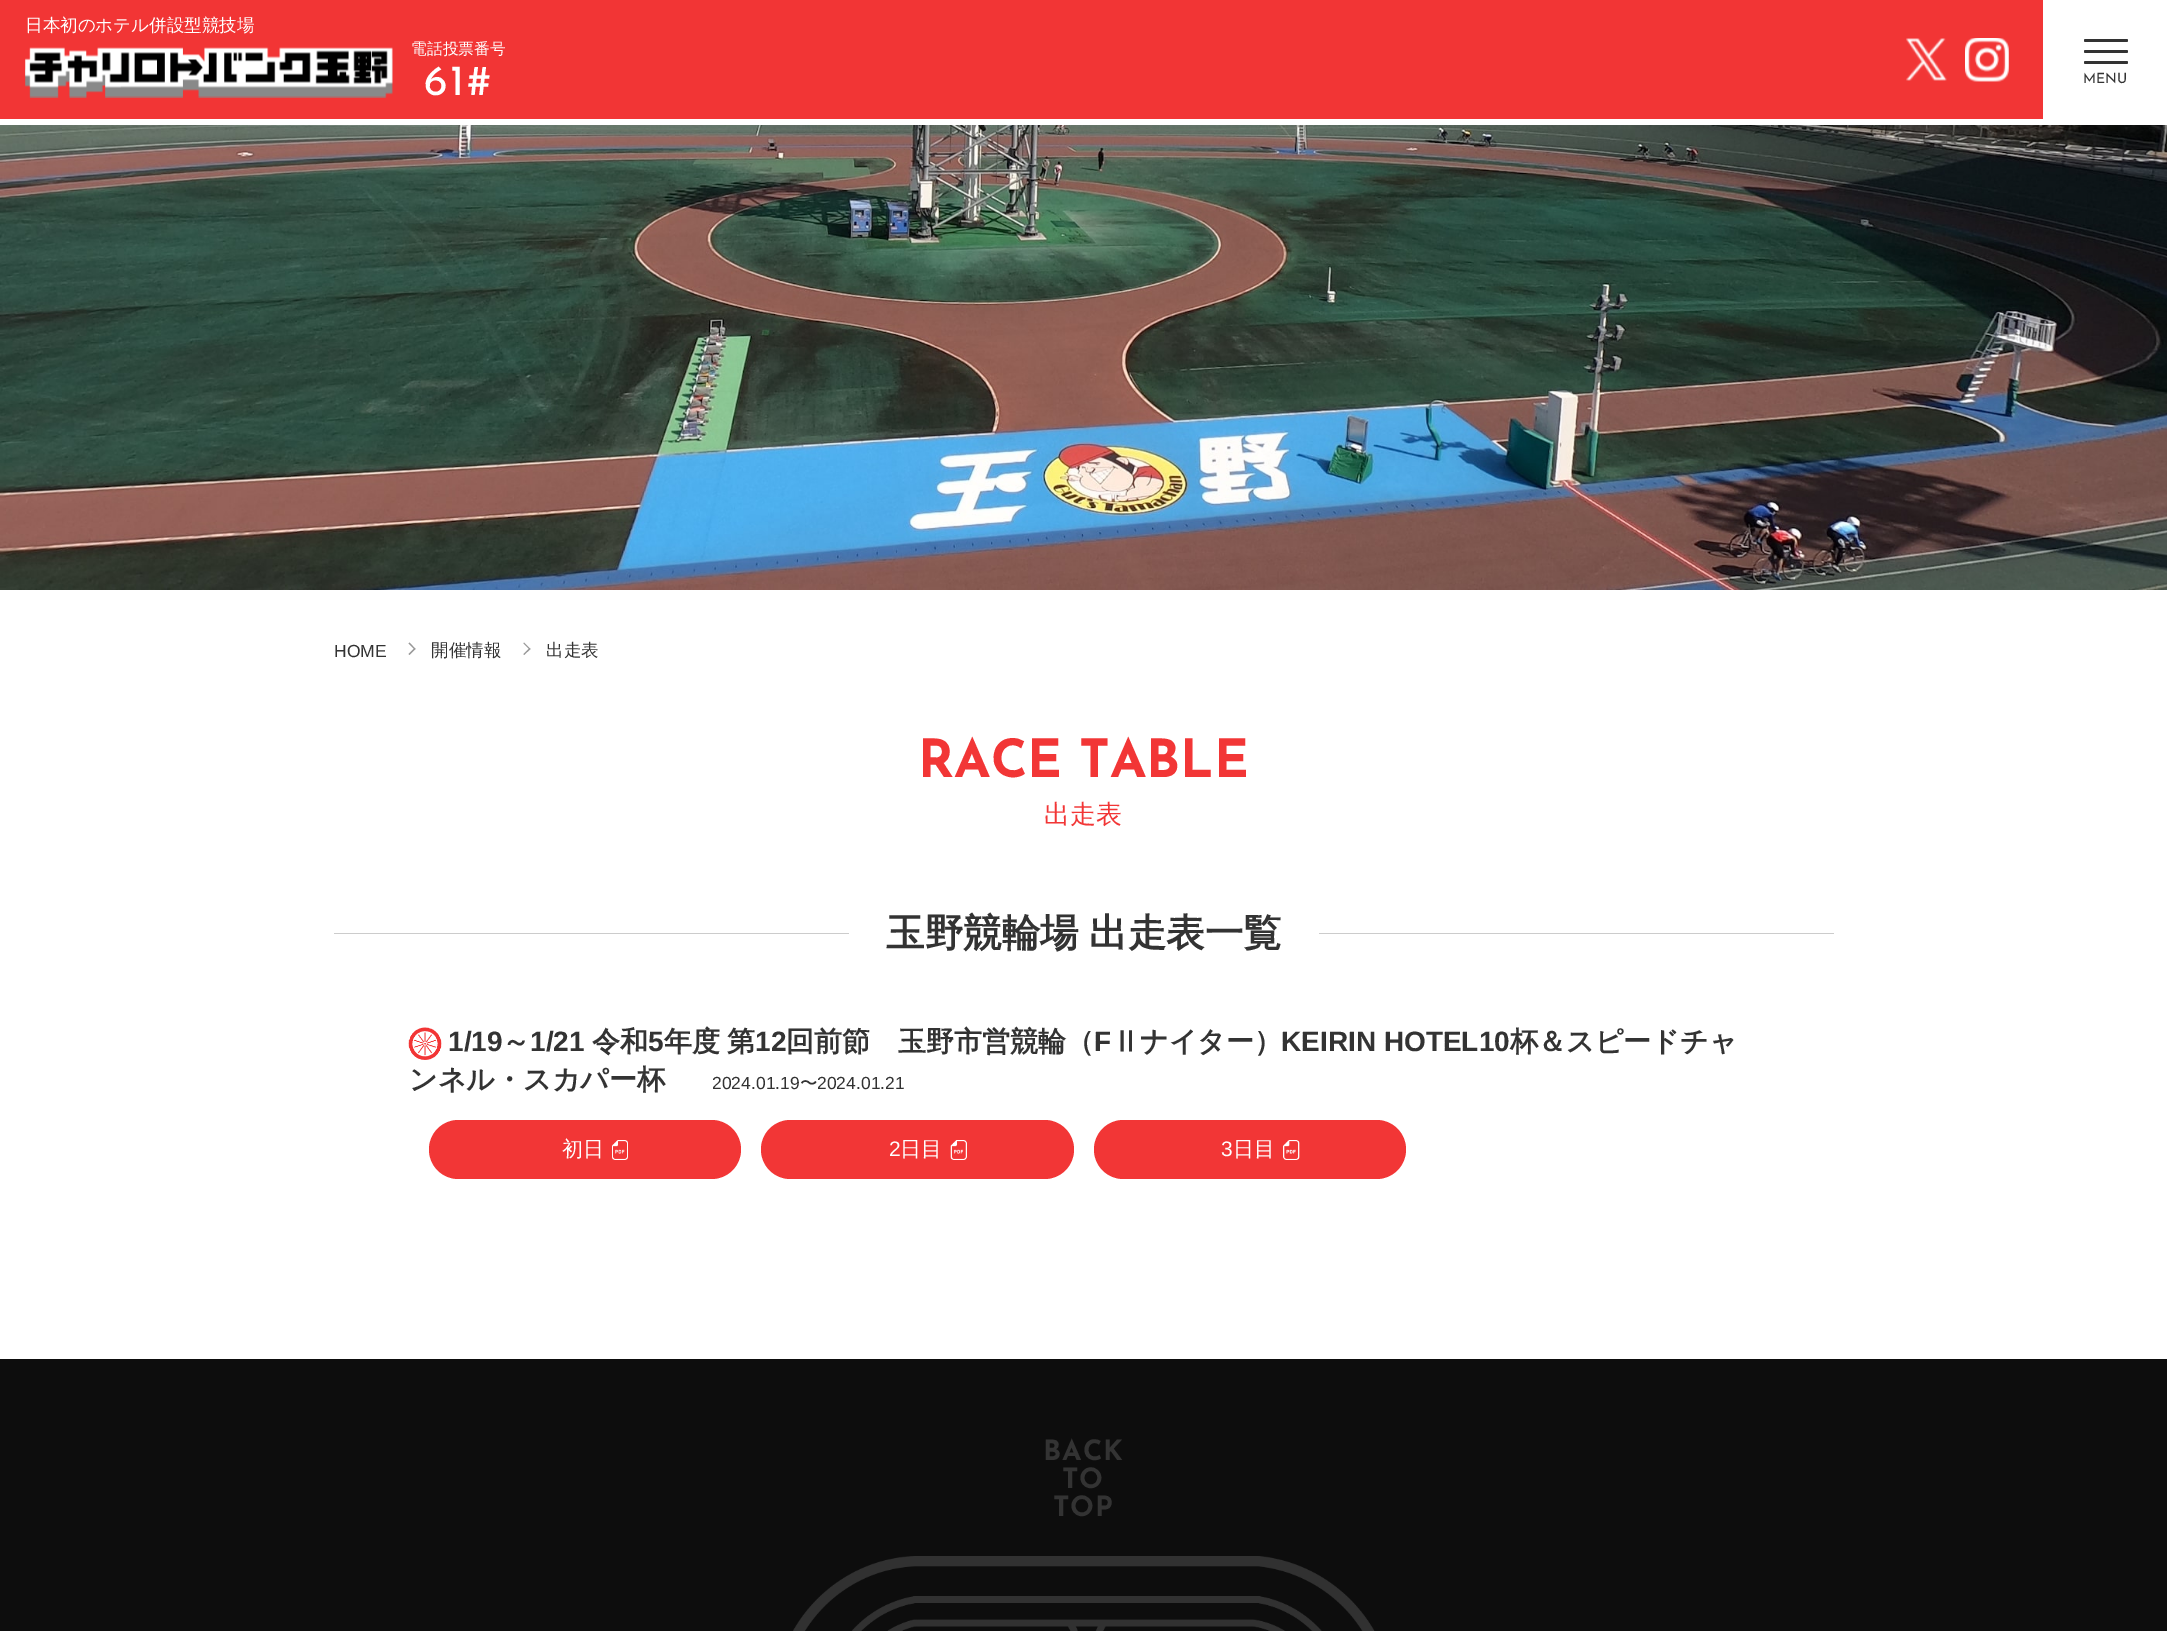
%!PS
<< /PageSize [2167 1631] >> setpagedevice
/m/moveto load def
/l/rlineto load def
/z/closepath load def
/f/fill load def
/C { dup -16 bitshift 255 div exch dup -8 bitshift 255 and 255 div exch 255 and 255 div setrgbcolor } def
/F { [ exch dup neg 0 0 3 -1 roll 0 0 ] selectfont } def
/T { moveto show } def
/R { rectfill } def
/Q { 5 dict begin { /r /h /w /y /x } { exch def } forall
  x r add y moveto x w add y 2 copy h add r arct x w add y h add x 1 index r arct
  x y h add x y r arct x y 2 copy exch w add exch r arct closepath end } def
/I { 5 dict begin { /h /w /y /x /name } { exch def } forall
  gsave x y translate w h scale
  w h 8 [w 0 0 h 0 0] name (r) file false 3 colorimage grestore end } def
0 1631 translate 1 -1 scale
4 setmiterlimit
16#FFFFFF C
0 0 2167 1631 R
16#F23535 C
0 0 2043 119 R
/WenQuanYiZenHei-Medium 17.5 F
16#FFFFFF C
(日本初のホテル併設型競技場) 25 31 T
(1.rgb) 25 47 368 51 I
/WenQuanYiZenHei-Medium 15.75 F
(電話投票番号) 411 54 T
/JosefinSans-Regular 43 F
424 95 m 2.5 0 (61#) ashow
(2.rgb) 1906 38 41 43 I
(3.rgb) 1965 38 44 44 I
16#333333 C
2084 39 44 3 1.5 Q f
2084 50 44 3 1.5 Q f
2084 61 44 3 1.5 Q f
/JosefinSans-Regular 14 F
(MENU) 2083 83 T
(4.rgb) 0 125 2167 465 I
/LiberationSans-Regular 17.5 F
(HOME) 334 657 T
16#999999 C
409.5 642.5 m 6 6.5 l -1 .5 l -6 -6 l z f
414.5 648 m 1 1 l -6 6 l -1 -1 l z f
/WenQuanYiZenHei-Medium 17.5 F
16#333333 C
(開催情報) 431 656 T
16#999999 C
524 642.5 m 6.5 6.5 l -1 .5 l -6 -6 l z f
529.5 648 m 1 1 l -6.5 6 l -.5 -1 l z f
16#333333 C
(出走表) 546 656 T
/JosefinSans-Bold 52.5 F
16#F23636 C
(RACE TABLE) 918 777 T
/WenQuanYiZenHei-Medium 26 F
(出走表) 1044 823 T
16#CCCCCC C
334 933 515 1 R
/WenQuanYiZenHei-Bold 38.5 F
16#333333 C
886 946 m -1 0 32 (玉野競輪場 出走表一覧) widthshow
16#CCCCCC C
1319 933 515 1 R
(5.rgb) 408 1027 34 33 I
/LiberationSans-Bold 28 F
16#333333 C
(1/19) 448 1051 T
/WenQuanYiZenHei-Bold 28 F
(～) 502 1051 T
/LiberationSans-Bold 28 F
(1/21) 530 1051 T
/WenQuanYiZenHei-Bold 28 F
(令和) 592 1051 T
/LiberationSans-Bold 28 F
(5) 648 1051 T
/WenQuanYiZenHei-Bold 28 F
(年度) 664 1051 T
(第) 727 1051 T
/LiberationSans-Bold 28 F
(12) 755 1051 T
/WenQuanYiZenHei-Bold 28 F
(回前節　玉野市営競輪（) 786 1051 T
/LiberationSans-Bold 28 F
(F) 1094 1051 T
/WenQuanYiZenHei-Bold 28 F
(Ⅱナイター）) 1112 1051 T
/LiberationSans-Bold 28 F
(KEIRIN HOTEL10) 1281 1051 T
/WenQuanYiZenHei-Bold 28 F
(杯＆スピードチャ) 1510 1051 T
(ンネル・スカパー杯) 409 1089 T
/LiberationSans-Regular 17.5 F
(2024.01.19) 712 1089 T
/WenQuanYiZenHei-Medium 17.5 F
(〜) 800 1089 T
/LiberationSans-Regular 17.5 F
(2024.01.21) 817 1089 T
16#F23636 C
429 1120 312 59 29.5 Q f
/WenQuanYiZenHei-Medium 21 F
16#FFFFFF C
(初日) 562 1156 T
(6.rgb) 612 1140 16 20 I
16#F23636 C
761 1120 313 59 29.5 Q f
/LiberationSans-Regular 21 F
16#FFFFFF C
(2) 889 1156 T
/WenQuanYiZenHei-Medium 21 F
(日目) 900 1156 T
(7.rgb) 950 1140 17 20 I
16#F23636 C
1094 1120 312 59 29.5 Q f
/LiberationSans-Regular 21 F
16#FFFFFF C
(3) 1221 1156 T
/WenQuanYiZenHei-Medium 21 F
(日目) 1233 1156 T
(8.rgb) 1283 1140 17 20 I
16#0D0D0D C
0 1359 2167 272 R
/JosefinSans-Bold 28 F
16#333333 C
1043 1460 m 1 0 (BACK) ashow
1062 1488 m 1 0 (TO) ashow
1053 1516 m 1 0 (TOP) ashow
(9.rgb) 793 1556 582 75 I
showpage
